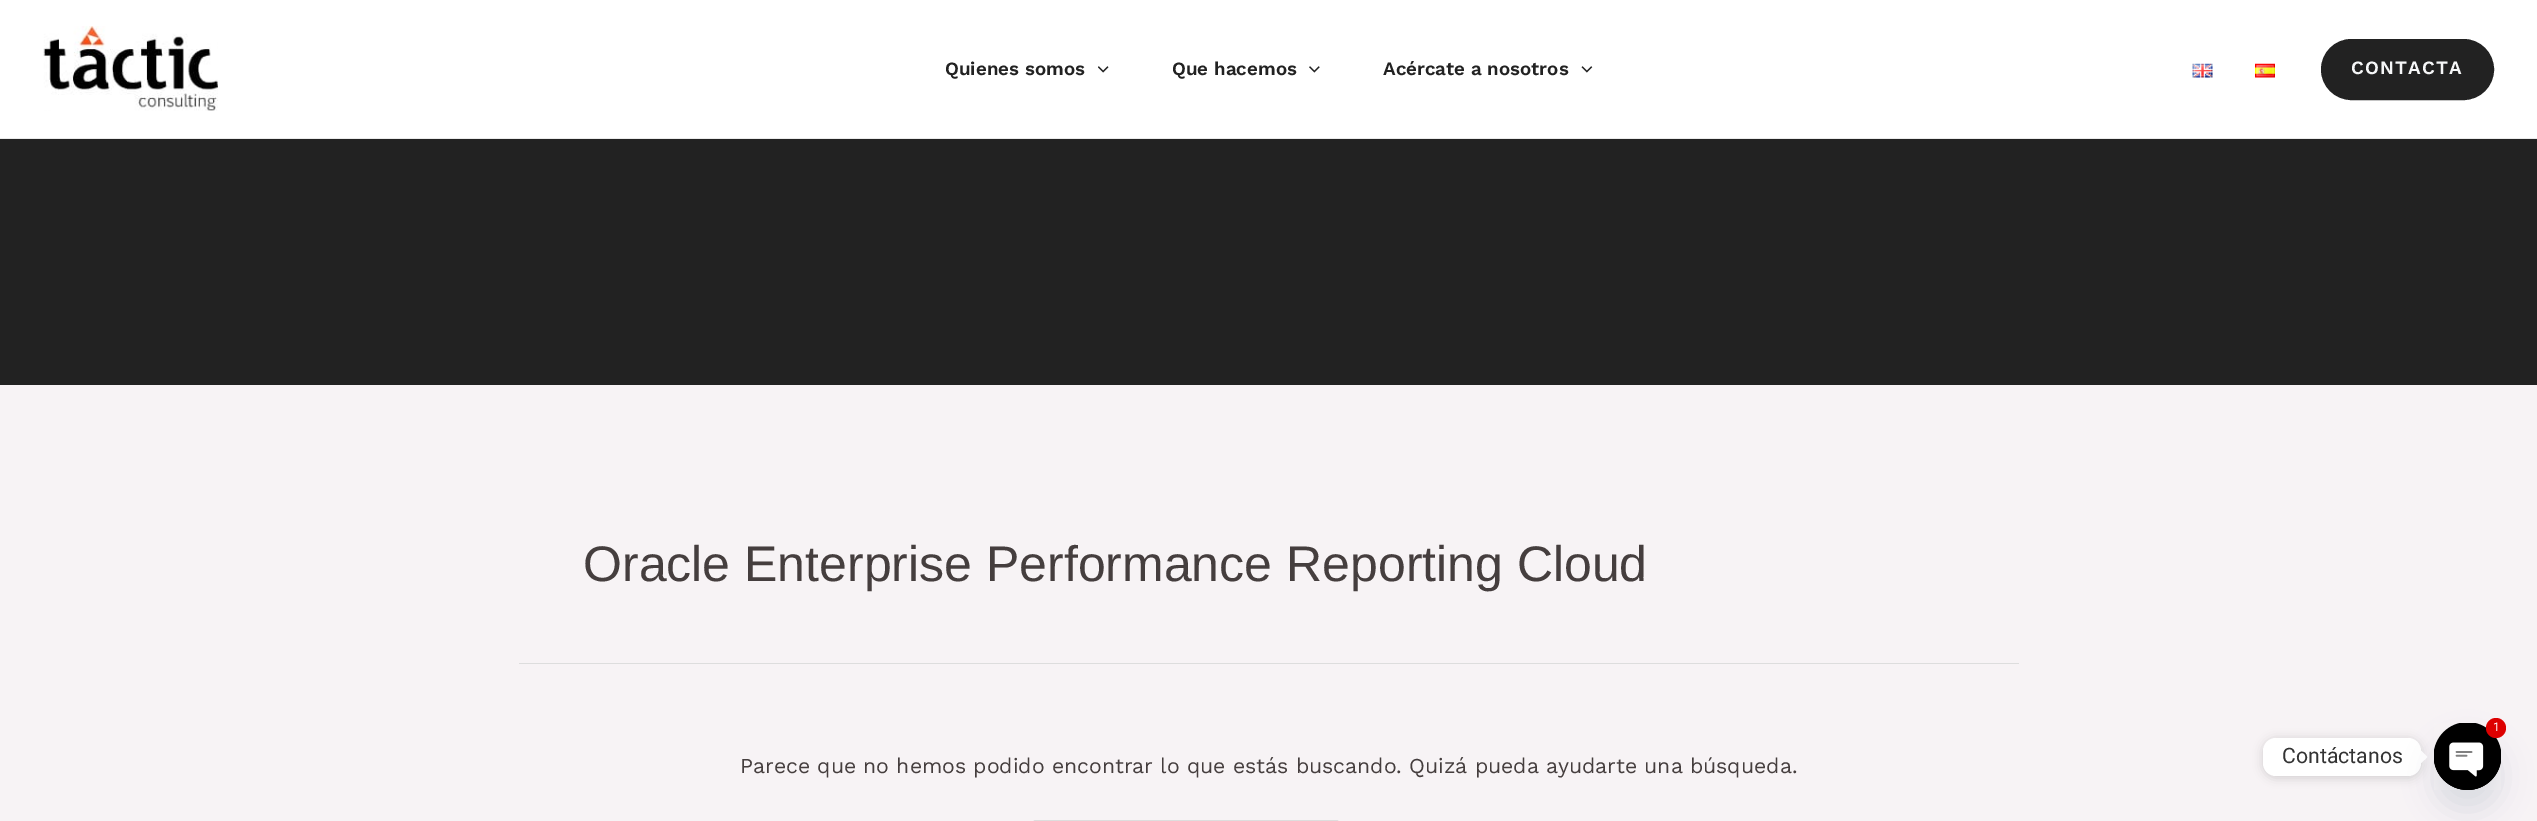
%!PS
<< /PageSize [2537 821] /PageUsesTransparency true >> setpagedevice
/m/moveto load def
/l/rlineto load def
/z/closepath load def
/f/fill load def
/s/stroke load def
/q/gsave load def
/Q_/grestore load def
/w/setlinewidth load def
/C { dup -16 bitshift 255 div exch dup -8 bitshift 255 and 255 div exch 255 and 255 div setrgbcolor } def
/F { [ exch dup neg 0 0 3 -1 roll 0 0 ] selectfont } def
/T { moveto show } def
/R { rectfill } def
/A { dup .setfillconstantalpha .setstrokeconstantalpha } def
/O { newpath 0 360 arc closepath } def
/Q { 5 dict begin { /r /h /w /y /x } { exch def } forall
  x r add y moveto x w add y 2 copy h add r arct x w add y h add x 1 index r arct
  x y h add x y r arct x y 2 copy exch w add exch r arct closepath end } def
/S { 12 dict begin { /a /b /q /h /w /y /x } { exch def } forall gsave /was 0 def
  9 -2 -9 { dup b mul 4 div /e exch def 1 sub .425 mul 2.718 exch exp 1 add a .99 .min exch div /now exch def
    1 1 now sub 1 was sub div sub A /was now def
    w h .min e 2 mul add 0 gt { x e sub y e sub w e 2 mul add h e 2 mul add
      q e add b .6 mul add w h .min 2 div e add .min 0 .max Q fill } if } for grestore end } def
/I { 5 dict begin { /h /w /y /x /name } { exch def } forall
  gsave x y translate w h scale
  w h 8 [w 0 0 h 0 0] name (r) file false 3 colorimage grestore end } def
0 .pushpdf14devicefilter
0 821 translate 1 -1 scale
4 setmiterlimit
16#F7F3F5 C
0 0 2537 821 R
16#FFFFFF C
0 0 2537 138 R
16#EAEAEA C
0 138 2537 1 R
(1.rgb) 43 26 175 85 I
/WorkSans-SemiBold 18.75 F
16#222222 C
(Quienes somos) 945 75 T
(2.rgb) 1098 66 11 7 I
(Que hacemos) 1172 75 T
(3.rgb) 1309 66 11 7 I
(Acércate a nosotros) 1383 75 T
(4.rgb) 1581 66 12 7 I
(5.rgb) 2192 63 21 15 I
(6.rgb) 2255 63 20 15 I
2322.5 40.5 170 58 29 Q q f Q_
3 w
s
16#F6F7F8 C
2351 74 m 1.25 0 (CONTACTA) ashow
16#222222 C
0 139 2537 246 R
16#DDDDDD C
519 663 1500 1 R
/LiberationSans-Regular 50 F
16#453E3E C
(Oracle Enterprise Performance Reporting Cloud) 583 581 T
/WorkSans-Regular 21.25 F
(Parece que no hemos podido encontrar lo que estás buscando. Quizá pueda ayudarte una búsqueda.) 740 773 T
16#DDDDDD C
1 w
1033.5 820.5 305 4 2 Q s
16#000000 C
2263 739 158 39 13 5 .15 S
16#FFFFFF C
2263 738 158 38 13 Q f
2421 763 m 0 -12.5 l 6.5 6.5 l z f
16#49687E C
2434 743 67 67 33.5 15 .16 S
(7.rgb) 2434 723 67 67 I
16#DD0000 C
2496 728 10 O f
/Roboto-Regular 12 F
16#FFFFFF C
(1) 2493 731 T
/Roboto-Regular 21.25 F
16#333333 C
(Contáctanos) 2282 763 T
.poppdf14devicefilter showpage
